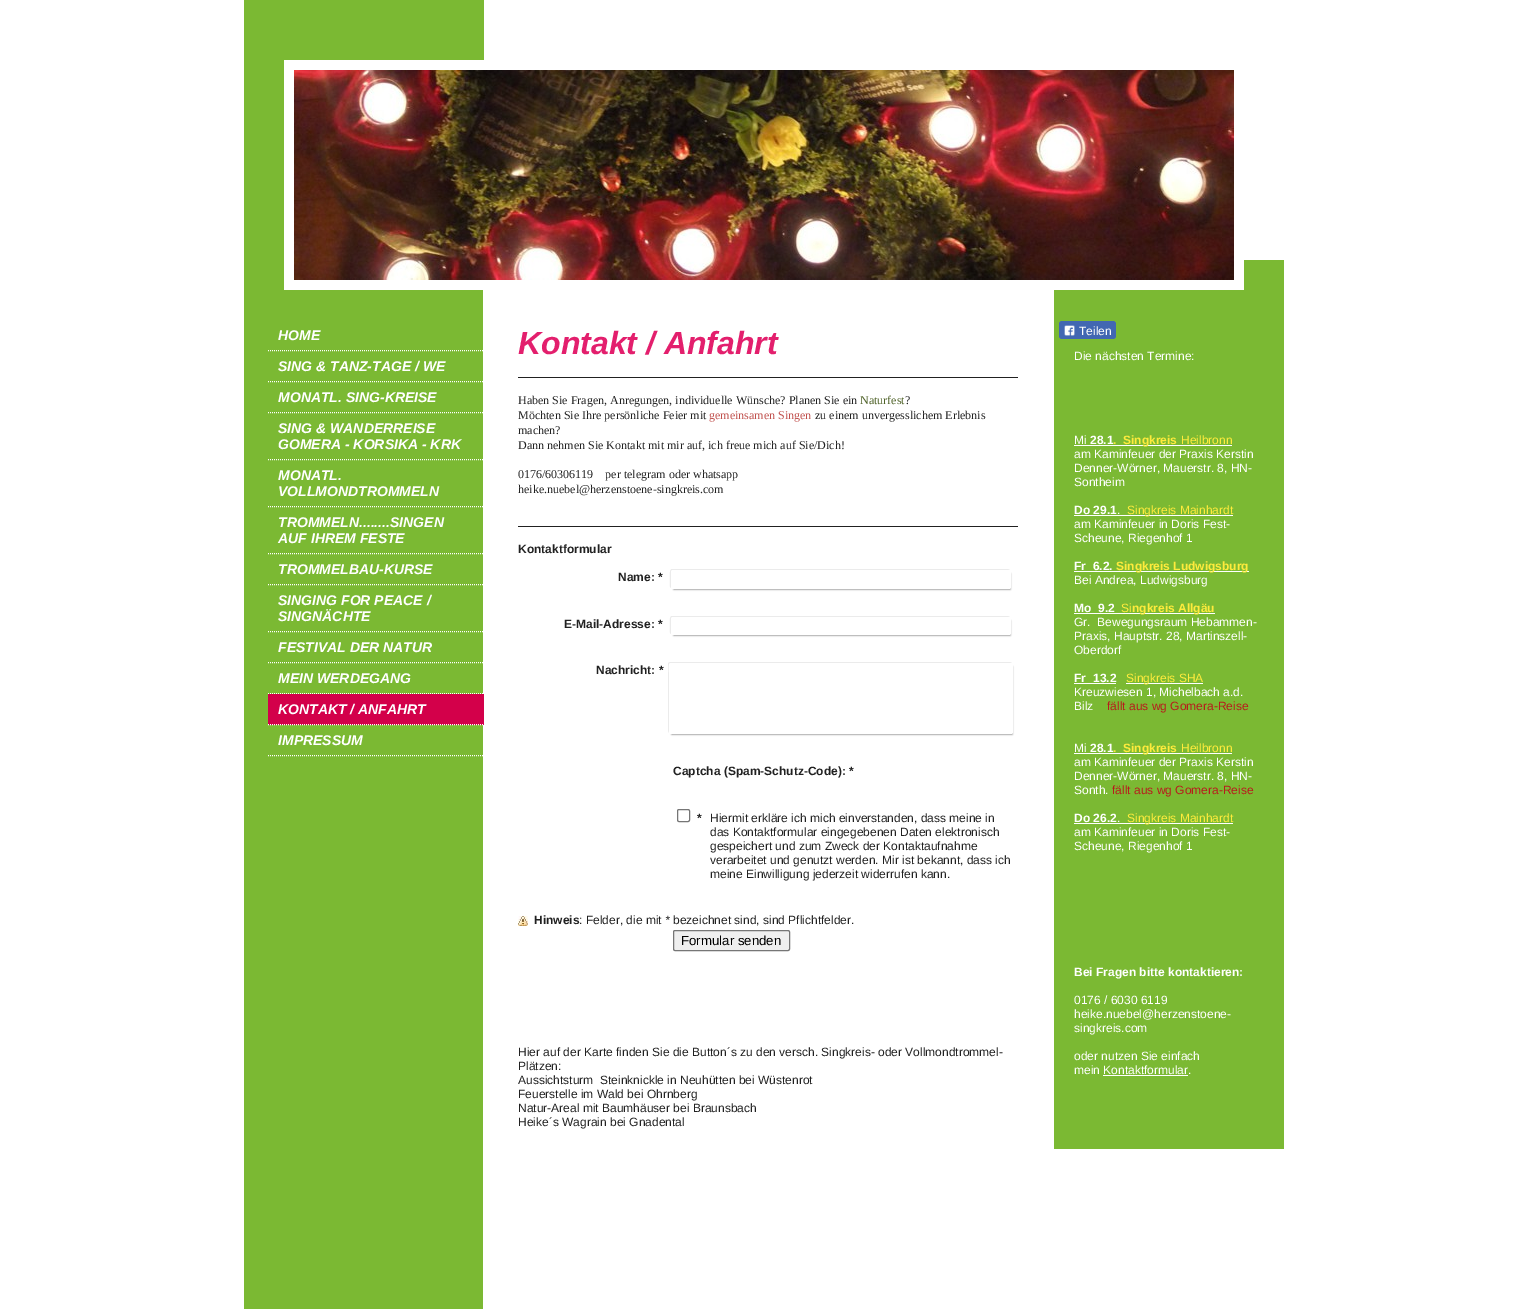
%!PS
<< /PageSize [1528 1309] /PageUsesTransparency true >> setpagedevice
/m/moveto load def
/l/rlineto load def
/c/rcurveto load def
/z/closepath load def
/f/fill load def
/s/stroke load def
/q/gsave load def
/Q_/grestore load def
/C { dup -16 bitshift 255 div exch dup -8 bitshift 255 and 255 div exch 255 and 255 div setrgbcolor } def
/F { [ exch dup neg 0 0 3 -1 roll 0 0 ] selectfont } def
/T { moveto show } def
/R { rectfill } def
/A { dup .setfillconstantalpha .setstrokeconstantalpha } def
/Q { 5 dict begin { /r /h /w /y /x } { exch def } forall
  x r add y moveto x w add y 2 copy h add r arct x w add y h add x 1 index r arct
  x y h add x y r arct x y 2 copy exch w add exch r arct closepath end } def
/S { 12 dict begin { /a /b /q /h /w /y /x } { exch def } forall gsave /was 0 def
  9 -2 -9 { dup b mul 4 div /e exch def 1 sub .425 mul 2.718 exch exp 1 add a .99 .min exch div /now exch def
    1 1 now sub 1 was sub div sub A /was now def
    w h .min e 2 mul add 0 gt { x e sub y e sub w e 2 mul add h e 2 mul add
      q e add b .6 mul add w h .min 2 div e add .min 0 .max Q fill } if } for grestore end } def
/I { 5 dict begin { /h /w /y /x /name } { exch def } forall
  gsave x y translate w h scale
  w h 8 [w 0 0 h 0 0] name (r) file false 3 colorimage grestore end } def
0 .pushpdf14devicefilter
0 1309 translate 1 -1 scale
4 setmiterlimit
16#FFFFFF C
0 0 1528 1309 R
16#7BB933 C
244 0 240 60 R
244 60 40 230 R
(1.rgb) 294 70 940 210 I
1244 260 40 30 R
244 290 239 1019 R
16#FFFFFF C
[1 1] 0 setdash
268 350.5 m 216 0 l s
/LiberationSans-BoldItalic 14 F
(HOME) 278 340 T
268 381.5 m 216 0 l s
(SING & TANZ-TAGE / WE) 278 371 T
268 412.5 m 216 0 l s
(MONATL. SING-KREISE) 278 402 T
268 459.5 m 216 0 l s
(SING & WANDERREISE) 278 433 T
(GOMERA - KORSIKA - KRK) 278 449 T
268 506.5 m 216 0 l s
(MONATL.) 278 480 T
(VOLLMONDTROMMELN) 278 496 T
268 553.5 m 216 0 l s
(TROMMELN........SINGEN) 278 527 T
(AUF IHREM FESTE) 278 543 T
268 584.5 m 216 0 l s
(TROMMELBAU-KURSE) 278 574 T
268 631.5 m 216 0 l s
(SINGING FOR PEACE /) 278 605 T
(SINGNÄCHTE) 278 621 T
268 662.5 m 216 0 l s
(FESTIVAL DER NATUR) 278 652 T
268 693.5 m 216 0 l s
(MEIN WERDEGANG) 278 683 T
16#D3004A C
268 694 216 31 R
16#FFFFFF C
268 724.5 m 216 0 l s
(KONTAKT / ANFAHRT) 278 714 T
268 755.5 m 216 0 l s
(IMPRESSUM) 278 745 T
/LiberationSans-BoldItalic 32 F
16#E31F6D C
(Kontakt / Anfahrt) 518 354 T
16#212121 C
518 377 500 1 R
/LiberationSerif-Regular 12 F
(Haben Sie Fragen, Anregungen, individuelle Wünsche? Planen Sie ein) 518 404 T
16#4F6228 C
(Naturfest) 860 404 T
16#212121 C
(?) 905 404 T
(Möchten Sie Ihre persönliche Feier mit) 518 419 T
16#C0504D C
(gemeinsamen Singen) 709 419 T
16#212121 C
(zu einem unvergesslichem Erlebnis) 815 419 T
(machen?) 518 434 T
(Dann nehmen Sie Kontakt mit mir auf, ich freue mich auf Sie/Dich!) 518 449 T
(0176/60306119    per telegram oder whatsapp) 518 478 T
(heike.nuebel@herzenstoene-singkreis.com) 518 493 T
518 526 500 1 R
/LiberationSans-Bold 12 F
(Kontaktformular) 518 553 T
16#EBEBEB C
672 569 m -3 0 -2 8 -2 9 c 0 2 -1 9 1 10 c 0 -8 l 0 -2 -1 -10 2 -10 c 337 0 l -2 -1 l z f
16#000000 C
674 574 336 15 0 1 .8 S
16#212121 C
(Name: *) 618 581 T
16#FFFFFF C
671 570 340 19 2 Q f
16#EBEBEB C
672 616 m -3 0 -2 7 -2 9 c 0 2 -1 8 1 9 c 0 -8 l 0 -2 -1 -9 2 -9 c 337 0 l -2 -1 l z f
16#000000 C
674 621 336 14 0 1 .8 S
16#212121 C
(E-Mail-Adresse: *) 564 628 T
16#FFFFFF C
671 617 340 18 2 Q f
16#EBEBEB C
670 662 m -2 1 l 0 68 l 1 2 l 0 -57 l 0 -4 -2 -13 2 -13 c 341 0 l -2 -1 l z f
16#000000 C
672 667 340 67 0 1 .8 S
16#212121 C
(Nachricht: *) 596 674 T
16#FFFFFF C
669 663 344 71 2 Q f
16#212121 C
(Captcha \(Spam-Schutz-Code\): *) 673 775 T
16#767676 C
[] 0 setdash
677.5 809.5 12 12 1.5 Q s
16#212121 C
(*) 697 822 T
/LiberationSans-Regular 12 F
(Hiermit erkläre ich mich einverstanden, dass meine in) 710 822 T
(das Kontaktformular eingegebenen Daten elektronisch) 710 836 T
(gespeichert und zum Zweck der Kontaktaufnahme) 710 850 T
(verarbeitet und genutzt werden. Mir ist bekannt, dass ich) 710 864 T
(meine Einwilligung jederzeit widerrufen kann.) 710 878 T
(2.rgb) 518 916 10 10 I
/LiberationSans-Bold 12 F
(Hinweis) 534 924 T
/LiberationSans-Regular 12 F
(: Felder, die mit) 579 924 T
/LiberationSans-Italic 12 F
(*) 665 924 T
/LiberationSans-Regular 12 F
(bezeichnet sind, sind Pflichtfelder.) 673 924 T
16#EFEFEF C
673.5 930.5 116 20 1.5 Q q f Q_
16#767676 C
s
/LiberationSans-Regular 13.25 F
16#000000 C
(Formular senden) 681 945 T
/LiberationSans-Regular 12 F
16#212121 C
(Hier auf der Karte finden Sie die Button´s zu den versch. Singkreis- oder Vollmondtrommel-) 518 1056 T
(Plätzen:) 518 1070 T
(Aussichtsturm  Steinknickle in Neuhütten bei Wüstenrot) 518 1084 T
(Feuerstelle im Wald bei Ohrnberg) 518 1098 T
(Natur-Areal mit Baumhäuser bei Braunsbach) 518 1112 T
(Heike´s Wagrain bei Gnadental) 518 1126 T
16#7BB933 C
1054 290 230 859 R
16#4267B2 C
1059 321 57 18 3 Q f
(3.rgb) 1064 325 11 11 I
16#FFFFFF C
(Teilen) 1079 335 T
(Die nächsten Termine:) 1074 360 T
(Mi) 1074 444 T
/LiberationSans-Bold 12 F
(28.1) 1090 444 T
1074 445 158 1 R
16#FFEB3C C
(.  Singkreis) 1113 444 T
/LiberationSans-Regular 12 F
(Heilbronn) 1181 444 T
16#FFFFFF C
(am Kaminfeuer der Praxis Kerstin) 1074 458 T
(Denner-Wörner, Mauerstr. 8, HN-) 1074 472 T
(Sontheim) 1074 486 T
/LiberationSans-Bold 12 F
(Do 29.1) 1074 514 T
/LiberationSans-Regular 12 F
(.) 1117 514 T
1074 515 159 1 R
16#FFEB3C C
(Singkreis Mainhardt) 1127 514 T
16#FFFFFF C
(am Kaminfeuer in Doris Fest-) 1074 528 T
(Scheune, Riegenhof 1) 1074 542 T
/LiberationSans-Bold 12 F
(Fr  6.2.) 1074 570 T
1074 571 175 1 R
16#FFEB3C C
(Singkreis Ludwigsburg) 1116 570 T
/LiberationSans-Regular 12 F
16#FFFFFF C
(Bei Andrea, Ludwigsburg) 1074 584 T
/LiberationSans-Bold 12 F
(Mo) 1074 612 T
1074 613 141 1 R
(9.2) 1098 612 T
/LiberationSans-Regular 12 F
16#FFEB3C C
(Si) 1121 612 T
/LiberationSans-Bold 12 F
(ngkreis Allgäu) 1132 612 T
/LiberationSans-Regular 12 F
16#FFFFFF C
(Gr.  Bewegungsraum Hebammen-) 1074 626 T
(Praxis, Hauptstr. 28, Martinszell-) 1074 640 T
(Oberdorf) 1074 654 T
/LiberationSans-Bold 12 F
(Fr) 1074 682 T
1074 683 42 1 R
(13.2) 1093 682 T
1126 683 77 1 R
/LiberationSans-Regular 12 F
16#FFEB3C C
(Singkreis SHA) 1126 682 T
16#FFFFFF C
(Kreuzwiesen 1, Michelbach a.d.) 1074 696 T
(Bilz) 1074 710 T
16#B71C1C C
(fällt aus wg Gomera-Reise) 1107 710 T
16#FFFFFF C
(Mi) 1074 752 T
/LiberationSans-Bold 12 F
(28.1) 1090 752 T
1074 753 82 1 R
16#FFEB3C C
(.  Singkreis) 1113 752 T
/LiberationSans-Regular 12 F
(Heilbronn) 1181 752 T
16#FFFFFF C
1156 753 76 1 R
(am Kaminfeuer der Praxis Kerstin) 1074 766 T
(Denner-Wörner, Mauerstr. 8, HN-) 1074 780 T
(Sonth.) 1074 794 T
16#B71C1C C
(fällt aus wg Gomera-Reise) 1112 794 T
/LiberationSans-Bold 12 F
16#FFFFFF C
(Do 26.2) 1074 822 T
/LiberationSans-Regular 12 F
(.) 1117 822 T
1074 823 159 1 R
16#FFEB3C C
(Singkreis Mainhardt) 1127 822 T
16#FFFFFF C
(am Kaminfeuer in Doris Fest-) 1074 836 T
(Scheune, Riegenhof 1) 1074 850 T
/LiberationSans-Bold 12 F
(Bei Fragen bitte kontaktieren:) 1074 976 T
/LiberationSans-Regular 12 F
(0176 / 6030 6119) 1074 1004 T
(heike.nuebel@herzenstoene-) 1074 1018 T
(singkreis.com) 1074 1032 T
(oder nutzen Sie einfach) 1074 1060 T
(mein Kontaktformular.) 1074 1074 T
1103 1075 85 1 R
.poppdf14devicefilter showpage
